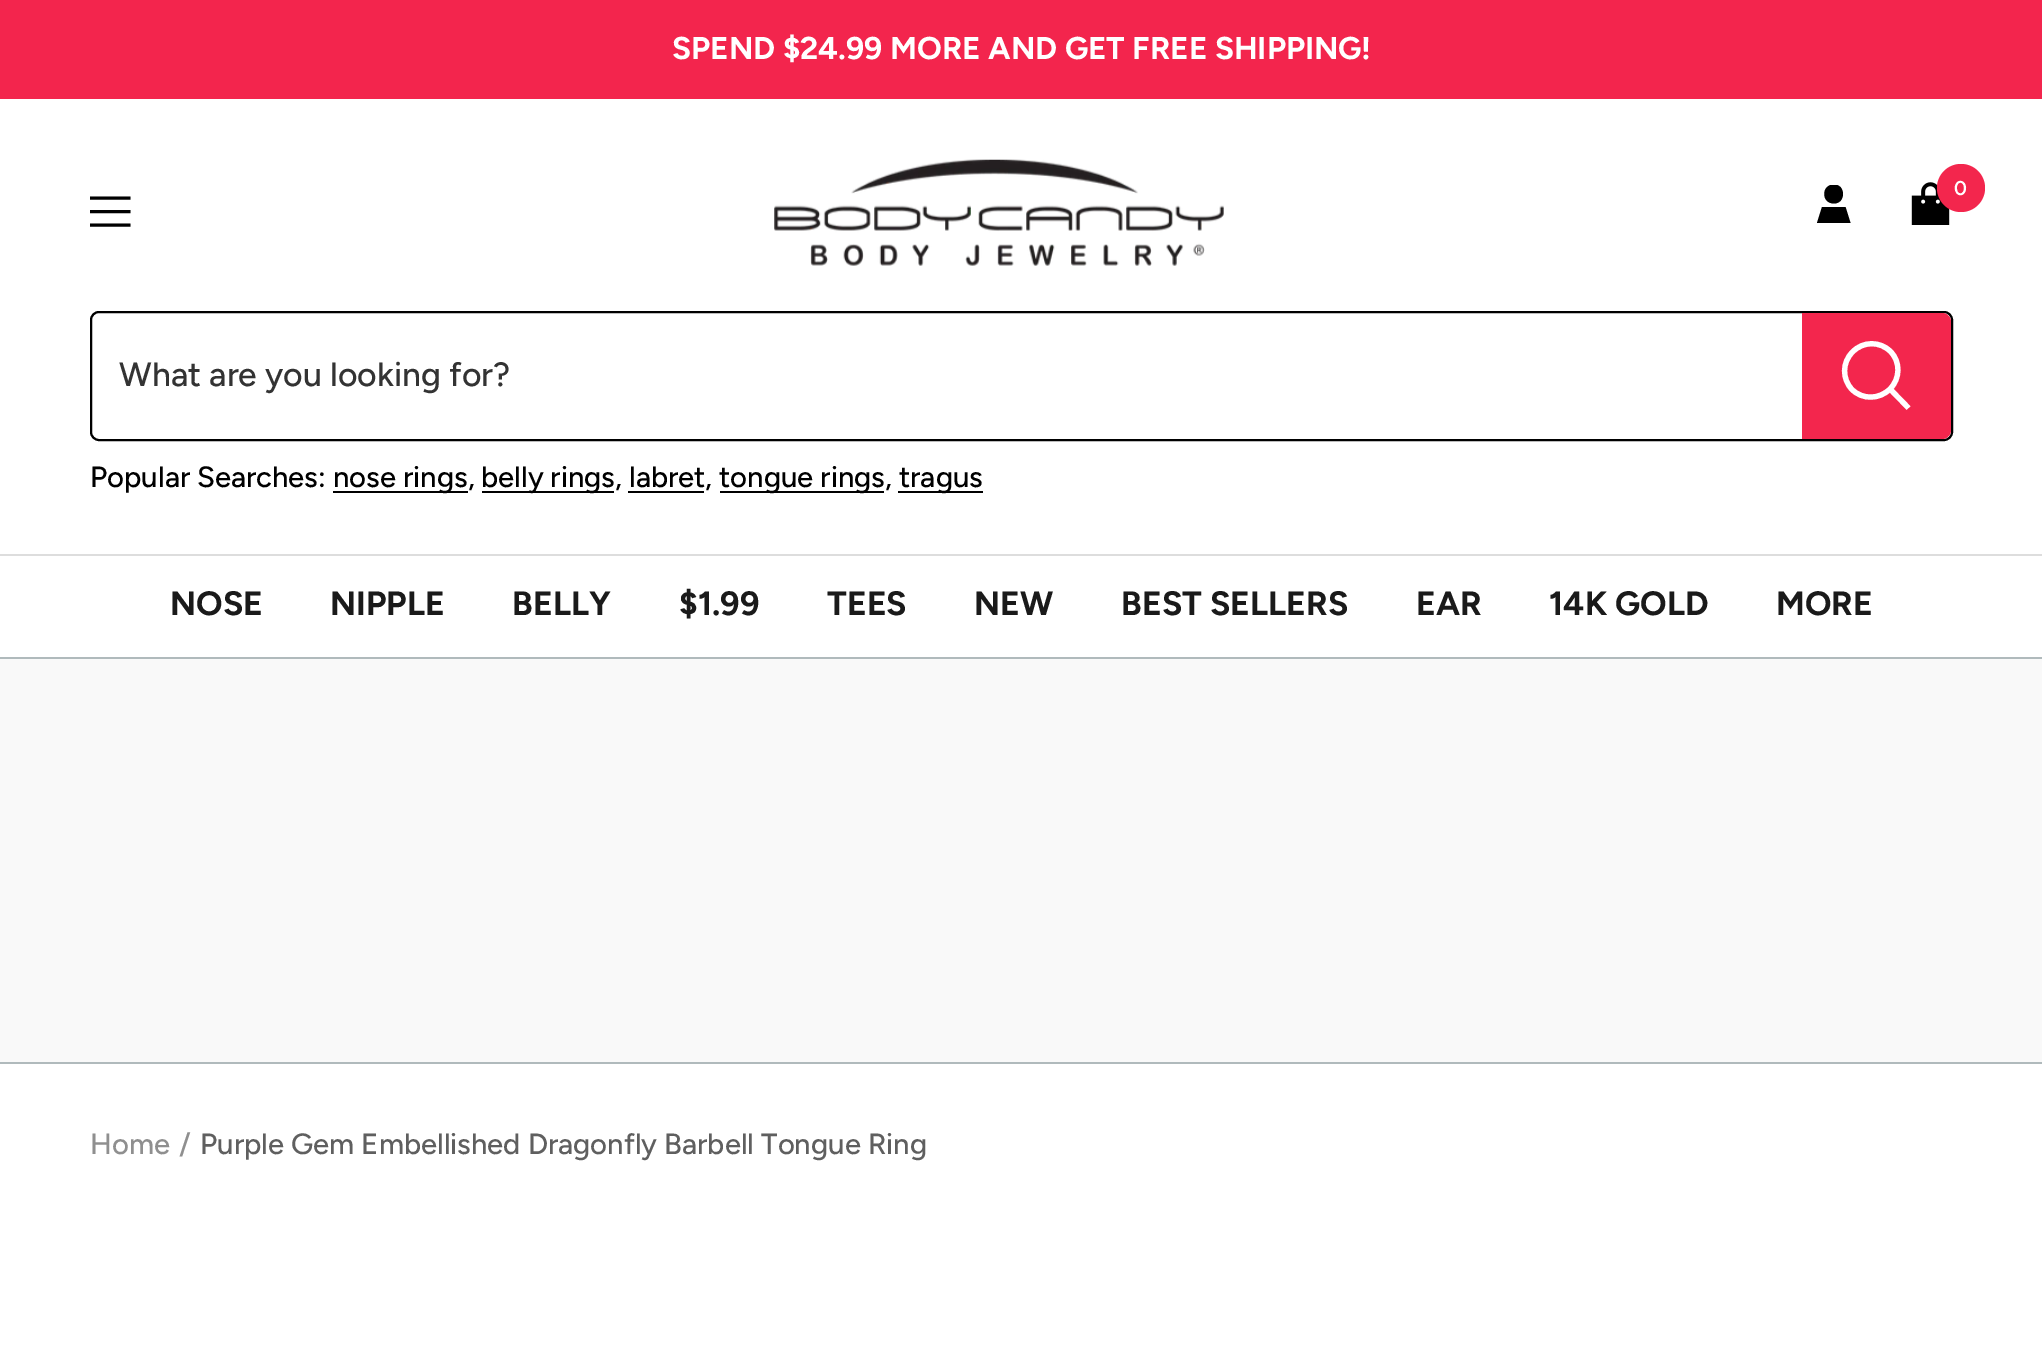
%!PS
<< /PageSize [2042 1368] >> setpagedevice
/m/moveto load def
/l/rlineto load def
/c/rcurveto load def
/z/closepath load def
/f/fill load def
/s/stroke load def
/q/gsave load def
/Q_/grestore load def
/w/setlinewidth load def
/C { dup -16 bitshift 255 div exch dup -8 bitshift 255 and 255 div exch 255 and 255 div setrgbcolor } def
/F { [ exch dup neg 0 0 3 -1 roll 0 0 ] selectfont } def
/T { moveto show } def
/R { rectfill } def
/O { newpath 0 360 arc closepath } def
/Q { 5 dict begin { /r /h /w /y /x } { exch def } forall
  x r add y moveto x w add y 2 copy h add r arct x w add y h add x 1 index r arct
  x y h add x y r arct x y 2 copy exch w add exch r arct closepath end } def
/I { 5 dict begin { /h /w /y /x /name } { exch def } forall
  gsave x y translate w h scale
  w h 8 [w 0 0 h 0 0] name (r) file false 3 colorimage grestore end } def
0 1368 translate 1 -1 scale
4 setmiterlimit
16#FFFFFF C
0 0 2042 1368 R
16#F3254D C
0 0 2042 99 R
/Figtree-Bold 31.5 F
16#FFFFFF C
(SPEND $24.99 MORE AND GET FREE SHIPPING!) 672 59 T
16#DDDDDD C
0 554 2042 2 R
(1.rgb) 774 159 450 107 I
q
1814 185 40 38 rectclip
16#000000 C
1834 203.5 m -13 0 -13 -19 0 -19 c 12 0 12 19 0 19 c z 1850.5 223 m -33.5 0 l 5 -16 l 23.5 0 l z f
Q_
(2.rgb) 1911 182 39 43 I
16#F3264D C
1961 188 24 O f
/Figtree-SemiBold 20 F
16#FFFFFF C
(0) 1954 195 T
16#000000 C
2.9 w
90 198 m 40.5 0 l 90 225 m 40.5 0 l z 90 211.5 m 40.5 0 l z s
2 w
91 312 1861 128 8 Q s
/Figtree-Medium 33.75 F
16#333333 C
(What are you looking for?) 119 386 T
16#F3264D C
1802 313 m 140 0 l 5 0 9 4 9 9 c 0 108 l 0 5 -4 9 -9 9 c -140 0 l z f
16#FFFFFF C
5.2 w
1890 389 m 10.5 -10.5 10.5 -27.5 .5 -37.5 c -10.5 -10.5 -27.5 -10.5 -38 .5 c -10.5 10.5 -10.5 27 -.5 37.5 c 10.5 10.5 27.5 10 38 -.5 c z 1890 389 m 18.5 19 l s
/Figtree-Medium 29.25 F
16#000000 C
(Popular Searches:) 90 487 T
333 491 135 2 R
(nose rings,) 333 487 T
482 491 132 2 R
(belly rings,) 481 487 T
(labret,) 629 487 T
628 491 76 2 R
720 491 164 2 R
(tongue rings,) 719 487 T
898 491 85 2 R
(tragus) 899 487 T
/Figtree-Bold 33.75 F
16#1A1A1A C
(NOSE) 170 615 T
(NIPPLE) 330 615 T
(BELLY) 512 615 T
($1.99) 679 615 T
(TEES) 827 615 T
(NEW) 974 615 T
(BEST SELLERS) 1121 615 T
(EAR) 1416 615 T
(14K GOLD) 1549 615 T
(MORE) 1776 615 T
16#F9F9F9 C
0 659 2042 403 R
16#B0BABC C
0 657 2042 2 R
0 1062 2042 2 R
/Figtree-Medium 29.25 F
16#8F8F8F C
(Home) 90 1154 T
(/) 179 1154 T
16#5F5F5F C
(Purple Gem Embellished Dragonfly Barbell Tongue Ring) 200 1154 T
showpage
